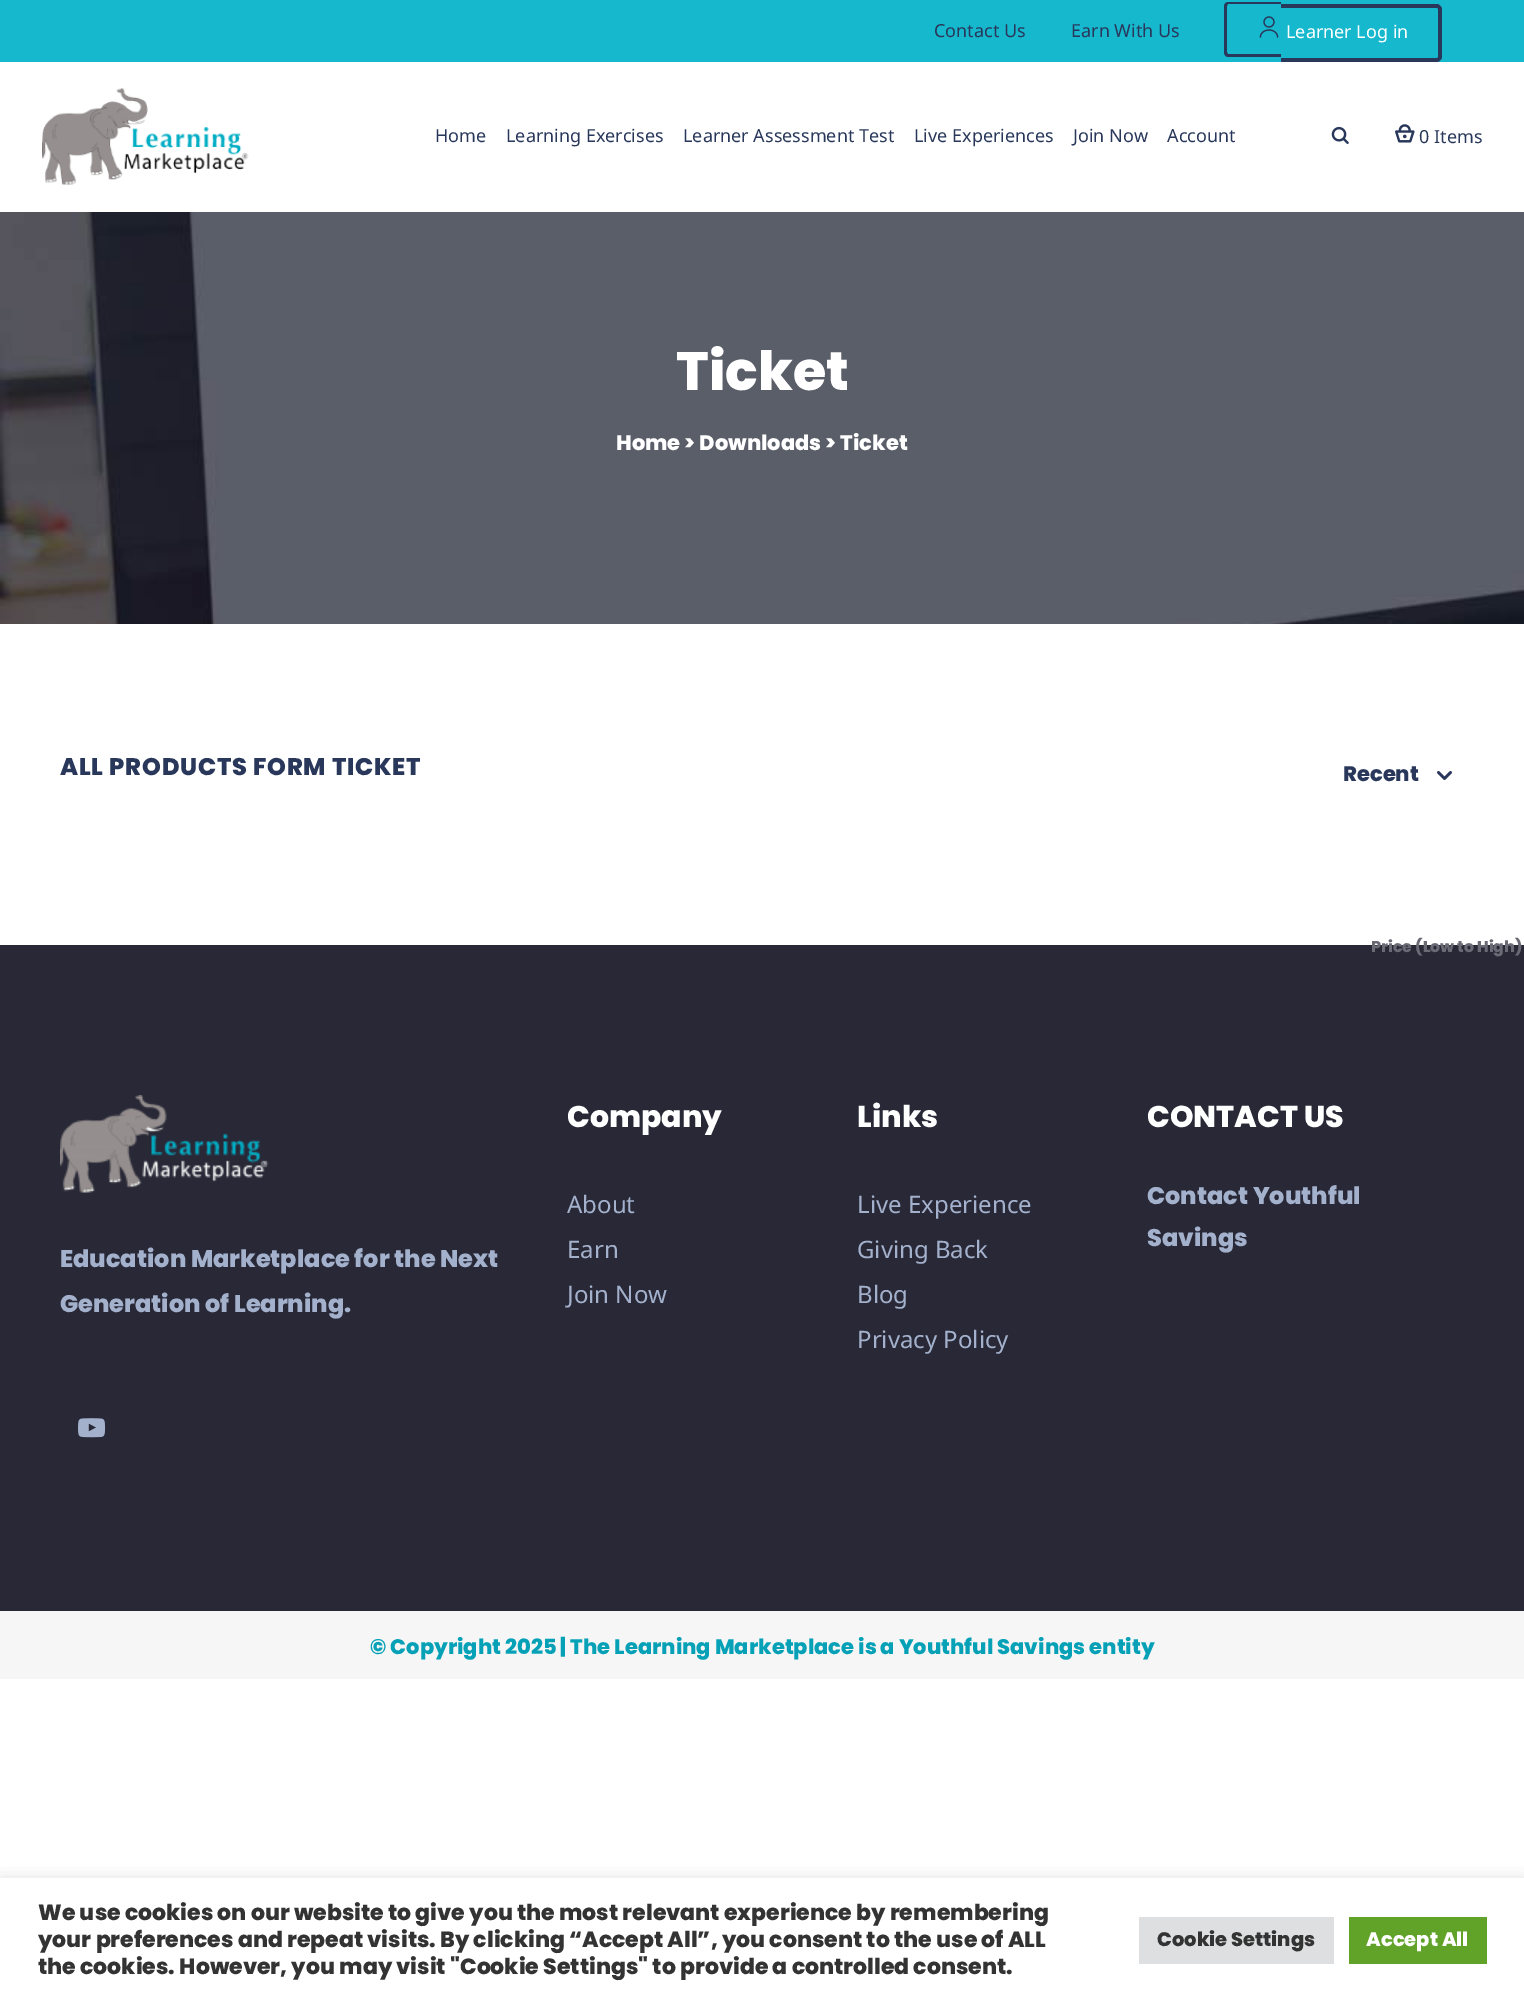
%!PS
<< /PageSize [1524 2001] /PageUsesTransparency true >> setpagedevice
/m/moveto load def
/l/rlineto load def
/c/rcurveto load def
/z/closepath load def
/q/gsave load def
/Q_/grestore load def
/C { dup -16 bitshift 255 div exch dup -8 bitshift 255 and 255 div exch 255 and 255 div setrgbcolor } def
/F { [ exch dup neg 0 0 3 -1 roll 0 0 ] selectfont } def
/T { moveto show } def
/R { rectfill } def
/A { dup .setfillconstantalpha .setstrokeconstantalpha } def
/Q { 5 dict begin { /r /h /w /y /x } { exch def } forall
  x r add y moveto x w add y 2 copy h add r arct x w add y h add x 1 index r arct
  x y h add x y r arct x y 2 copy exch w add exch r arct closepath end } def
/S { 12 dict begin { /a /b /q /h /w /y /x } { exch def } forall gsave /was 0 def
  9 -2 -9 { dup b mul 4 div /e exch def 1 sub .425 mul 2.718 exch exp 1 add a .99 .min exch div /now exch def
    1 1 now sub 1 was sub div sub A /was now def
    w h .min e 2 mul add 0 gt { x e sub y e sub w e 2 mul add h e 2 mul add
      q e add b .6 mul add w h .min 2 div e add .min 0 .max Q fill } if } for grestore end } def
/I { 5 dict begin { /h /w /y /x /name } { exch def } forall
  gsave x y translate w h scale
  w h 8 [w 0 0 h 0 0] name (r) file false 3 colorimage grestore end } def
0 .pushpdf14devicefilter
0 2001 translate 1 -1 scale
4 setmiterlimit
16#FFFFFF C
0 0 1524 2001 R
16#16B8CE C
0 0 1524 62 R
/NotoSans-Regular 18 F
16#28375A C
(Contact Us) 934 37 T
(Earn With Us) 1071 37 T
1228 2 m 53 0 l 0 55 l -53 0 l -2 0 -4 -2 -4 -5 c 0 -46 l 0 -2 2 -4 4 -4 c z 1228 4 m 53 0 l 0 50 l -53 0 l 0 0 -1 -1 -1 -2 c 0 -46 l 0 -1 1 -2 1 -2 c z eofill
(1.rgb) 1259 16 20 22 I
1281 4 m 156 0 l 2 0 5 3 5 5 c 0 48 l 0 2 -3 5 -5 5 c -156 0 l z 1281 8 m 156 0 l 1 0 1 0 1 1 c 0 48 l 0 1 0 1 -1 1 c -156 0 l z eofill
16#FFFFFF C
(Learner Log in) 1286 38 T
(2.rgb) 42 88 207 97 I
16#28375A C
(Home) 435 142 T
(Learning Exercises) 506 142 T
(Learner Assessment Test) 683 142 T
(Live Experiences) 914 142 T
(Join Now) 1073 142 T
(Account) 1167 142 T
(3.rgb) 1331 126 18 18 I
(4.rgb) 1395 124 20 19 I
(0 Items) 1419 143 T
(5.rgb) 0 212 1524 412 I
/Poppins-ExtraBold 54 F
16#FFFFFF C
(Ticket) 676 390 T
/Poppins-ExtraBold 21 F
(Home > Downloads > Ticket) 616 450 T
/Poppins-ExtraBold 24 F
16#28375A C
60 775 m .75 0 (ALL PRODUCTS FORM TICKET) ashow
/Poppins-ExtraBold 21 F
(Recent) 1343 781 T
(6.rgb) 1437 771 15 9 I
16#282837 C
0 945 1524 666 R
/Poppins-ExtraBold 15.75 F
16#6A6A75 C
(Price \(Low to High\)) 1371 952 T
/Poppins-ExtraBold 30 F
16#FFFFFF C
(Company) 567 1127 T
/NotoSans-Regular 24 F
16#A3B1CC C
(About) 567 1213 T
(Earn) 567 1258 T
(Join Now) 567 1303 T
/Poppins-ExtraBold 30 F
16#FFFFFF C
(Links) 857 1127 T
/NotoSans-Regular 24 F
16#A3B1CC C
(Live Experience) 857 1213 T
(Giving Back) 857 1258 T
(Blog) 857 1303 T
(Privacy Policy) 857 1348 T
/Poppins-ExtraBold 30 F
16#FFFFFF C
(CONTACT US) 1147 1127 T
/Poppins-ExtraBold 24 F
16#A3B1CC C
(Contact Youthful) 1147 1204 T
(Savings) 1147 1246 T
(7.rgb) 60 1095 209 98 I
(Education Marketplace for the Next) 60 1267 T
(Generation of Learning.) 60 1312 T
(8.rgb) 78 1418 28 20 I
16#F6F6F6 C
0 1611 1524 68 R
/Poppins-ExtraBold 21 F
16#06A1B6 C
(© Copyright 2025 | The Learning Marketplace is a Youthful Savings entity) 370 1654 T
q
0 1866 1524 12 rectclip
16#ACABAB C
0 1877 1524 123 0 7.5 .3 S
Q_
/Poppins-ExtraBold 22 F
16#333333 C
(We use cookies on our website to give you the most relevant experience by remembering) 38 1920 T
(your preferences and repeat visits. By clicking “Accept All”, you consent to the use of ALL) 38 1947 T
(the cookies. However, you may visit "Cookie Settings" to provide a controlled consent.) 38 1974 T
16#DEDFE0 C
1139 1917 195 47 R
/Poppins-ExtraBold 19.5 F
16#333333 C
(Cookie Settings) 1157 1946 T
16#61A229 C
1349 1917 138 47 R
16#FFFFFF C
(Accept All) 1366 1946 T
.poppdf14devicefilter showpage
